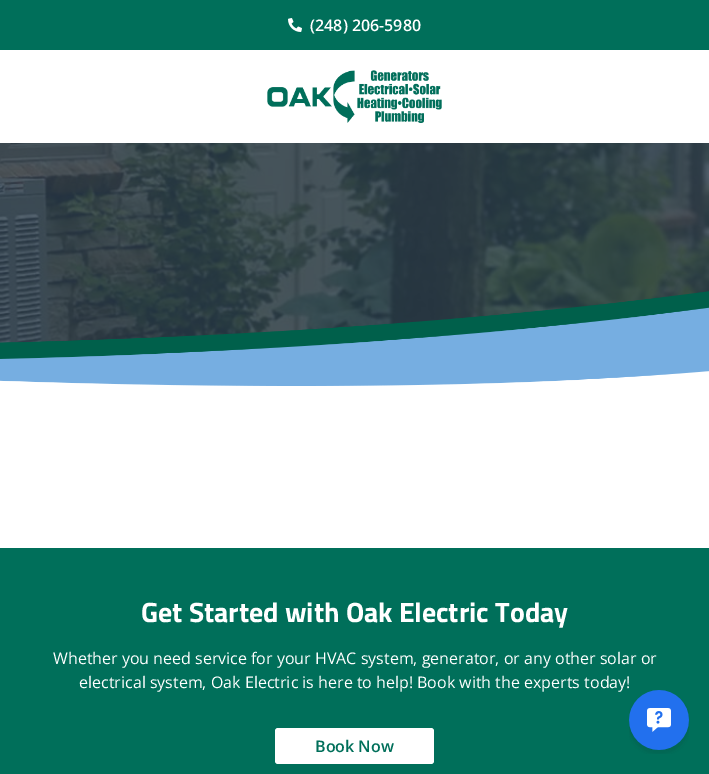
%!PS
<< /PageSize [709 774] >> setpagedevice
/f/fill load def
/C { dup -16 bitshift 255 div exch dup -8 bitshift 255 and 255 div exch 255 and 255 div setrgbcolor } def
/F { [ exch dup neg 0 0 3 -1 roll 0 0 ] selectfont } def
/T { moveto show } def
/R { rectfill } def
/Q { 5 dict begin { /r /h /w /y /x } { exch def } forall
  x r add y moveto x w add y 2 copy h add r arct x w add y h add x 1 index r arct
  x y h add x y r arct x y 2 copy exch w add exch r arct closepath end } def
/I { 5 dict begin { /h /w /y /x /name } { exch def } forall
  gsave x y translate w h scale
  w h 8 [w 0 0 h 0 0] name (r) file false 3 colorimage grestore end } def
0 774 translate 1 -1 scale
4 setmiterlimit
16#FFFFFF C
0 0 709 774 R
16#006F5A C
0 0 709 50 R
(1.rgb) 288 18 14 14 I
/OpenSans-SemiBold 16 F
16#FFFFFF C
(\(248\) 206-5980) 310 31 T
(2.rgb) 267 70 175 53 I
(3.rgb) 0 143 709 200 I
(4.rgb) 0 291 709 95 I
16#006F5A C
0 548 709 226 R
/TitilliumWeb-Bold 28 F
16#FFFFFF C
(Get Started with Oak Electric Today) 141 622 T
/OpenSans-Regular 16 F
(Whether you need service for your HVAC system, generator, or any other solar or) 53 664 T
(electrical system, Oak Electric is here to help! Book with the experts today!) 79 688 T
275 728 159 36 3 Q f
/OpenSans-SemiBold 16 F
16#006F5A C
(Book Now) 315 752 T
(5.rgb) 629 690 60 64 I
showpage
